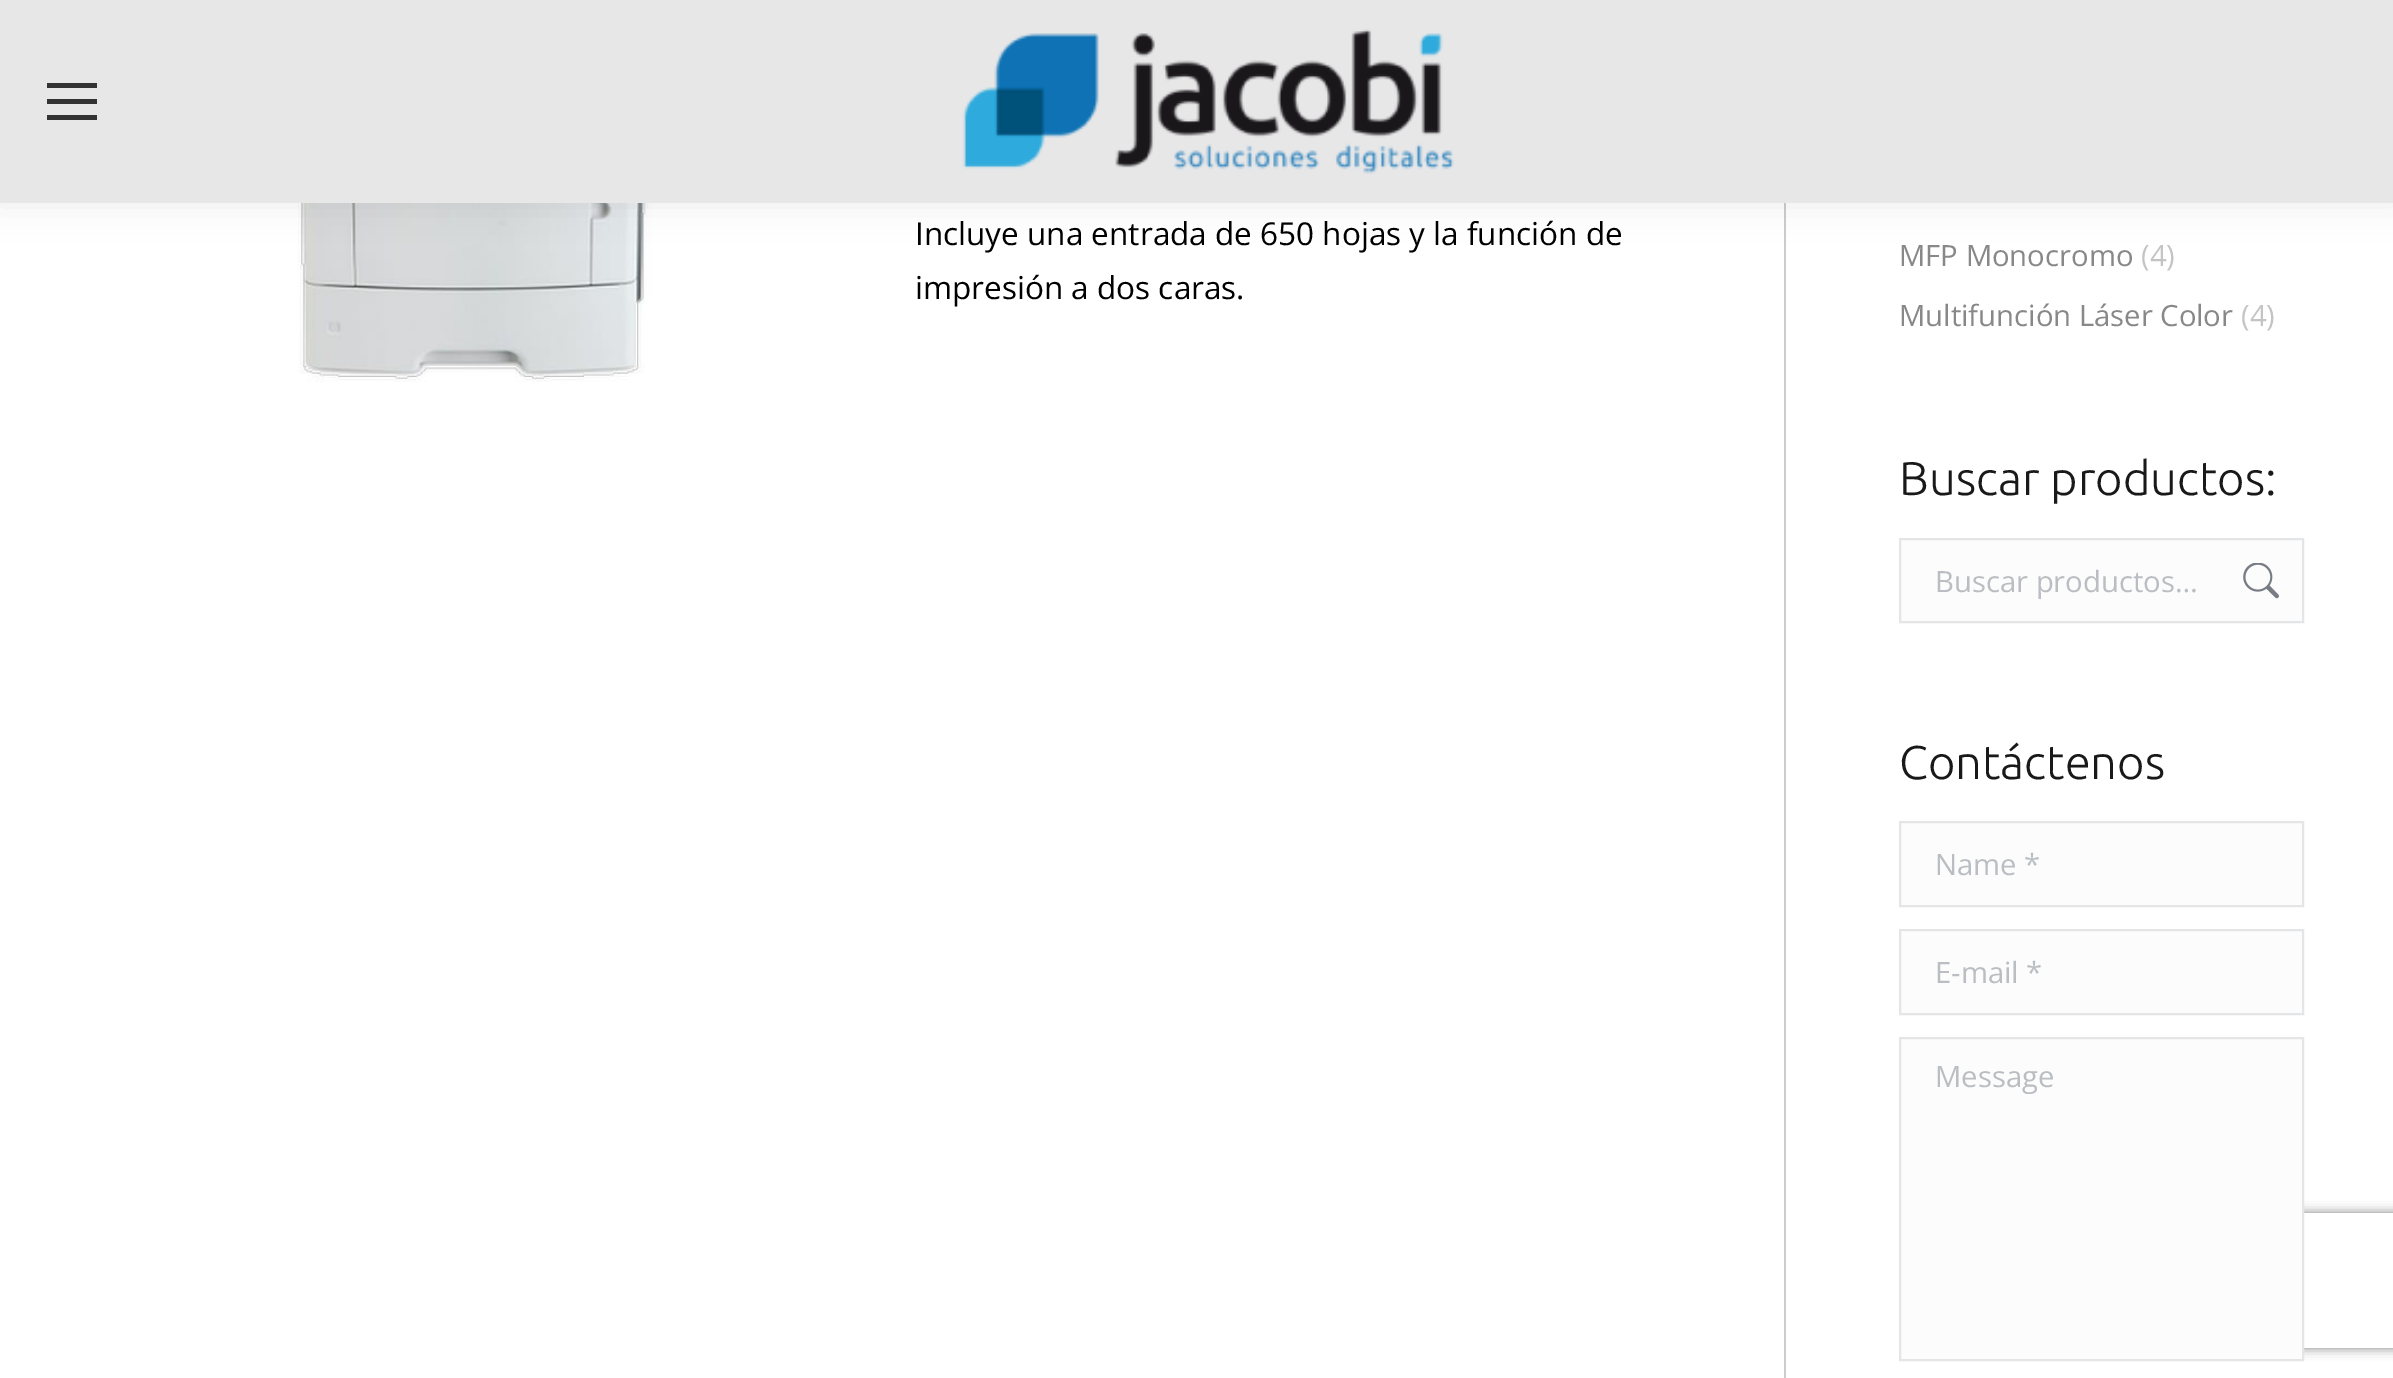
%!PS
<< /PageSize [2393 1378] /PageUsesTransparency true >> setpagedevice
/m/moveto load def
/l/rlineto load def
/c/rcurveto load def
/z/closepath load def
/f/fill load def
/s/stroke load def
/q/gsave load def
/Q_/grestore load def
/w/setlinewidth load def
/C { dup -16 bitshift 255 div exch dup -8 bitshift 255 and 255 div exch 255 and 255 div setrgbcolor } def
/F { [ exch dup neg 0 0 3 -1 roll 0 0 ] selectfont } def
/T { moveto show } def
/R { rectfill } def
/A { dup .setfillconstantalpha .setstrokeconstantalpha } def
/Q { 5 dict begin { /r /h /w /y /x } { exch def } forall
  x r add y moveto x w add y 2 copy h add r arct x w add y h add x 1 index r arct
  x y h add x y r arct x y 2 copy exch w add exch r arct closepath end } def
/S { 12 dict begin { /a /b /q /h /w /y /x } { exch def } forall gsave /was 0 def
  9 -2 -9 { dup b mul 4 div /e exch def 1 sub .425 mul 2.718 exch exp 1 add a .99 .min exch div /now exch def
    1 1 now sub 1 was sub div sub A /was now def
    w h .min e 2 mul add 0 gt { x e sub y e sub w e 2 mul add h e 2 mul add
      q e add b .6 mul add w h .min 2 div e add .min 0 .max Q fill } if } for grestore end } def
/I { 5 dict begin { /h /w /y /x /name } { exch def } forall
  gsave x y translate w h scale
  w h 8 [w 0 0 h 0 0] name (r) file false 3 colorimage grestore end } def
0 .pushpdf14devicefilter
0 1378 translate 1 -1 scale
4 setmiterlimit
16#FFFFFF C
0 0 2393 1378 R
(2.rgb) 263 203 416 179 I
16#CCCCCC C
1784 203 2 1175 R
16#000000 C
-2 -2 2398 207 0 17 .07 S
16#E7E7E8 C
0 0 2393 203 R
16#333333 C
47 83 50 5 R
47 99 50 5 R
47 115 50 5 R
(1.rgb) 962 29 492 145 I
/OpenSans-Regular 31.5 F
16#000000 C
(Incluye una entrada de 650 hojas y la función de) 915 245 T
(impresión a dos caras.) 915 299 T
/OpenSans-Regular 29.25 F
16#888888 C
(MFP Monocromo) 1899 266 T
16#C4C4C4 C
(\(4\)) 2141 266 T
16#888888 C
(Multifunción Láser Color) 1899 326 T
16#C4C4C4 C
(\(4\)) 2241 326 T
/Ubuntu-Light 47.25 F
16#191919 C
(Buscar productos:) 1899 495 T
16#FCFCFC C
1900 539 m 403 0 l 0 83 l -403 0 l z q f Q_
16#E4E5E7 C
2 w
s
/OpenSans-Regular 29.25 F
16#BABDC1 C
(Buscar productos…) 1935 592 T
(3.rgb) 2243 563 36 36 I
/Ubuntu-Light 47.25 F
16#191919 C
(Contáctenos) 1899 779 T
16#FCFCFC C
1900 822 m 403 0 l 0 84 l -403 0 l z q f Q_
16#E4E5E7 C
s
/OpenSans-Regular 29.25 F
16#BABDC1 C
(Name *) 1935 875 T
16#FCFCFC C
1900 930 m 403 0 l 0 84 l -403 0 l z q f Q_
16#E4E5E7 C
s
16#BABDC1 C
(E-mail *) 1935 983 T
q
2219 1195 m 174 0 l 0 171 l -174 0 l z 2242 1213 m 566 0 l 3 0 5 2 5 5 c 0 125 l 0 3 -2 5 -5 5 c -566 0 l -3 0 -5 -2 -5 -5 c 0 -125 l 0 -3 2 -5 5 -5 c z eoclip newpath
16#808080 C
2237 1213 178 135 5 5.5 1 S
Q_
16#FCFCFC C
1900 1038 m 403 0 l 0 322 l -403 0 l z q f Q_
16#E4E5E7 C
s
16#BABDC1 C
(Message) 1935 1087 T
.poppdf14devicefilter showpage
